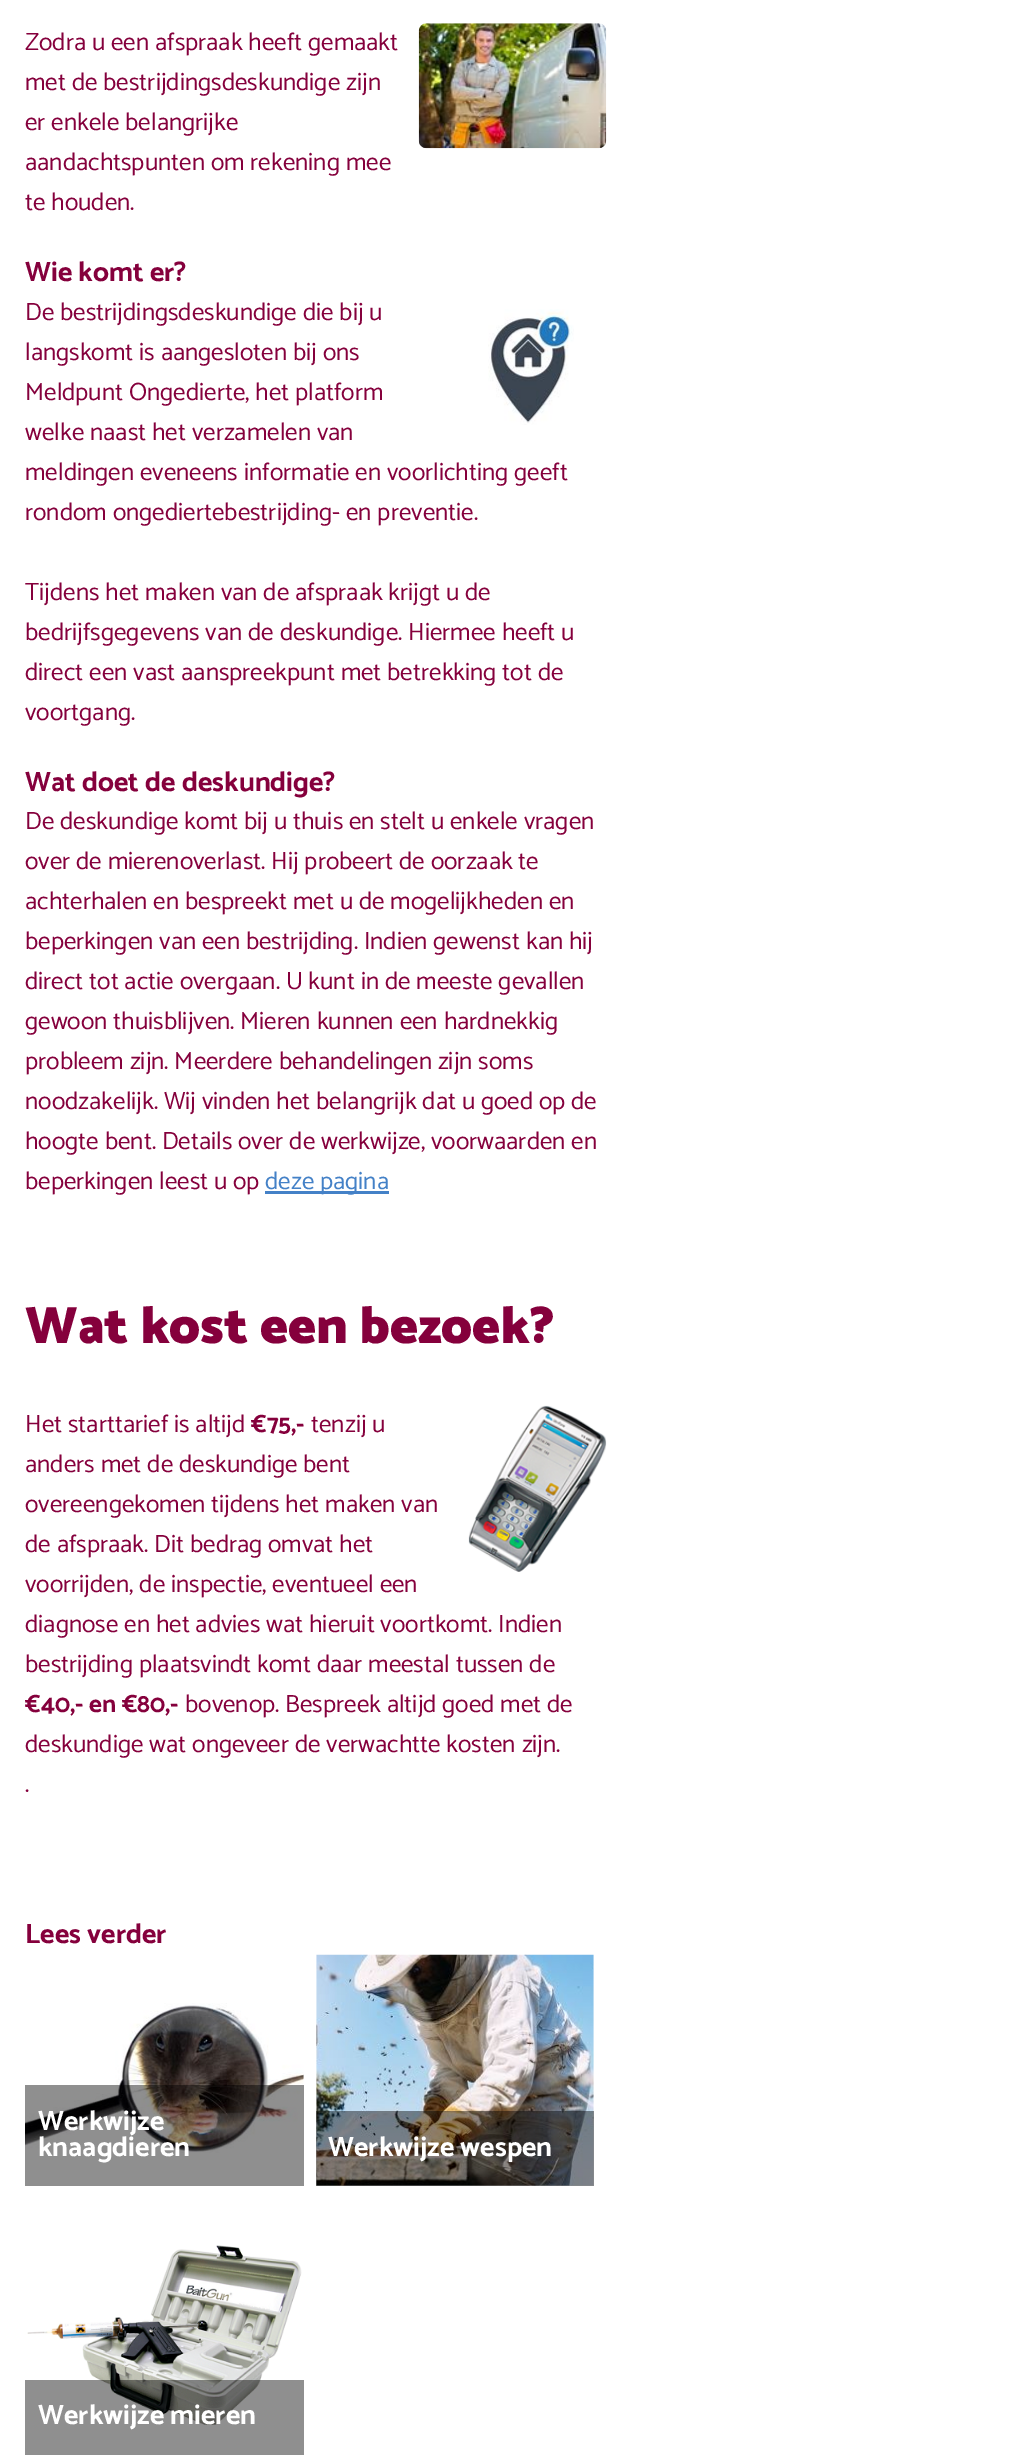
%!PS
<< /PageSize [1036 2461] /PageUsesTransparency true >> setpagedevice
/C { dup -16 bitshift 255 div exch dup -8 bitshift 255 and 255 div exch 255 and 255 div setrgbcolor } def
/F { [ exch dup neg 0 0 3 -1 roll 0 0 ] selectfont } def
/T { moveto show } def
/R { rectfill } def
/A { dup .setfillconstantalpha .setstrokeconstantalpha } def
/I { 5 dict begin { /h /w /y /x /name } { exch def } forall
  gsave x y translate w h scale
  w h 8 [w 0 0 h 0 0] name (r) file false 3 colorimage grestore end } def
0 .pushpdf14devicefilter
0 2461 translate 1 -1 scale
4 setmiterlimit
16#FFFFFF C
0 0 1036 2461 R
/Catamaran-Regular 25 F
16#85003C C
(Zodra u een afspraak heeft gemaakt) 25 50 T
(1.rgb) 418 23 189 126 I
(met de bestrijdingsdeskundige zijn) 25 90 T
(er enkele belangrijke) 25 130 T
(aandachtspunten om rekening mee) 25 170 T
(te houden.) 25 210 T
/Catamaran-Bold 28 F
(Wie komt er?) 25 281 T
/Catamaran-Regular 25 F
(De bestrijdingsdeskundige die bij u) 25 320 T
(2.rgb) 488 309 86 116 I
(langskomt is aangesloten bij ons) 25 360 T
(Meldpunt Ongedierte, het platform) 25 400 T
(welke naast het verzamelen van) 25 440 T
(meldingen eveneens informatie en voorlichting geeft) 25 480 T
(rondom ongediertebestrijding- en preventie.) 25 520 T
(Tijdens het maken van de afspraak krijgt u de) 25 600 T
(bedrijfsgegevens van de deskundige. Hiermee heeft u) 25 640 T
(direct een vast aanspreekpunt met betrekking tot de) 25 680 T
(voortgang.) 25 720 T
/Catamaran-Bold 28 F
(Wat doet de deskundige?) 25 791 T
/Catamaran-Regular 25 F
(De deskundige komt bij u thuis en stelt u enkele vragen) 25 829 T
(over de mierenoverlast. Hij probeert de oorzaak te) 25 869 T
(achterhalen en bespreekt met u de mogelijkheden en) 25 909 T
(beperkingen van een bestrijding. Indien gewenst kan hij) 25 949 T
(direct tot actie overgaan. U kunt in de meeste gevallen) 25 989 T
(gewoon thuisblijven. Mieren kunnen een hardnekkig) 25 1029 T
(probleem zijn. Meerdere behandelingen zijn soms) 25 1069 T
(noodzakelijk. Wij vinden het belangrijk dat u goed op de) 25 1109 T
(hoogte bent. Details over de werkwijze, voorwaarden en) 25 1149 T
(beperkingen leest u op) 25 1189 T
16#4481C7 C
265 1191 124 3 R
(deze pagina) 265 1189 T
/Catamaran-Black 52.5 F
16#85003C C
(Wat kost een bezoek?) 25 1343 T
/Catamaran-Regular 25 F
(Het starttarief is altijd) 25 1432 T
/Catamaran-Bold 25 F
(€75,-) 251 1432 T
/Catamaran-Regular 25 F
(tenzij u) 311 1432 T
(3.rgb) 468 1405 139 167 I
(anders met de deskundige bent) 25 1472 T
(overeengekomen tijdens het maken van) 25 1512 T
(de afspraak. Dit bedrag omvat het) 25 1552 T
(voorrijden, de inspectie, eventueel een) 25 1592 T
(diagnose en het advies wat hieruit voortkomt. Indien) 25 1632 T
(bestrijding plaatsvindt komt daar meestal tussen de) 25 1672 T
/Catamaran-Bold 25 F
(€40,- en €80,-) 25 1712 T
/Catamaran-Regular 25 F
(bovenop. Bespreek altijd goed met de) 185 1712 T
(deskundige wat ongeveer de verwachtte kosten zijn.) 25 1752 T
(.) 25 1792 T
/Catamaran-Bold 28 F
(Lees verder) 25 1943 T
(4.rgb) 25 2003 279 150 I
0.44 A
16#000000 C
25 2085 279 101 R
1 A
16#FFFFFF C
(Werkwijze) 38 2130 T
(knaagdieren) 38 2156 T
(5.rgb) 316 1954 278 232 I
0.44 A
16#000000 C
316 2111 278 75 R
1 A
16#FFFFFF C
(Werkwijze wespen) 328 2156 T
(6.rgb) 27 2245 275 180 I
0.44 A
16#000000 C
25 2380 279 75 R
1 A
16#FFFFFF C
(Werkwijze mieren) 38 2424 T
.poppdf14devicefilter showpage
